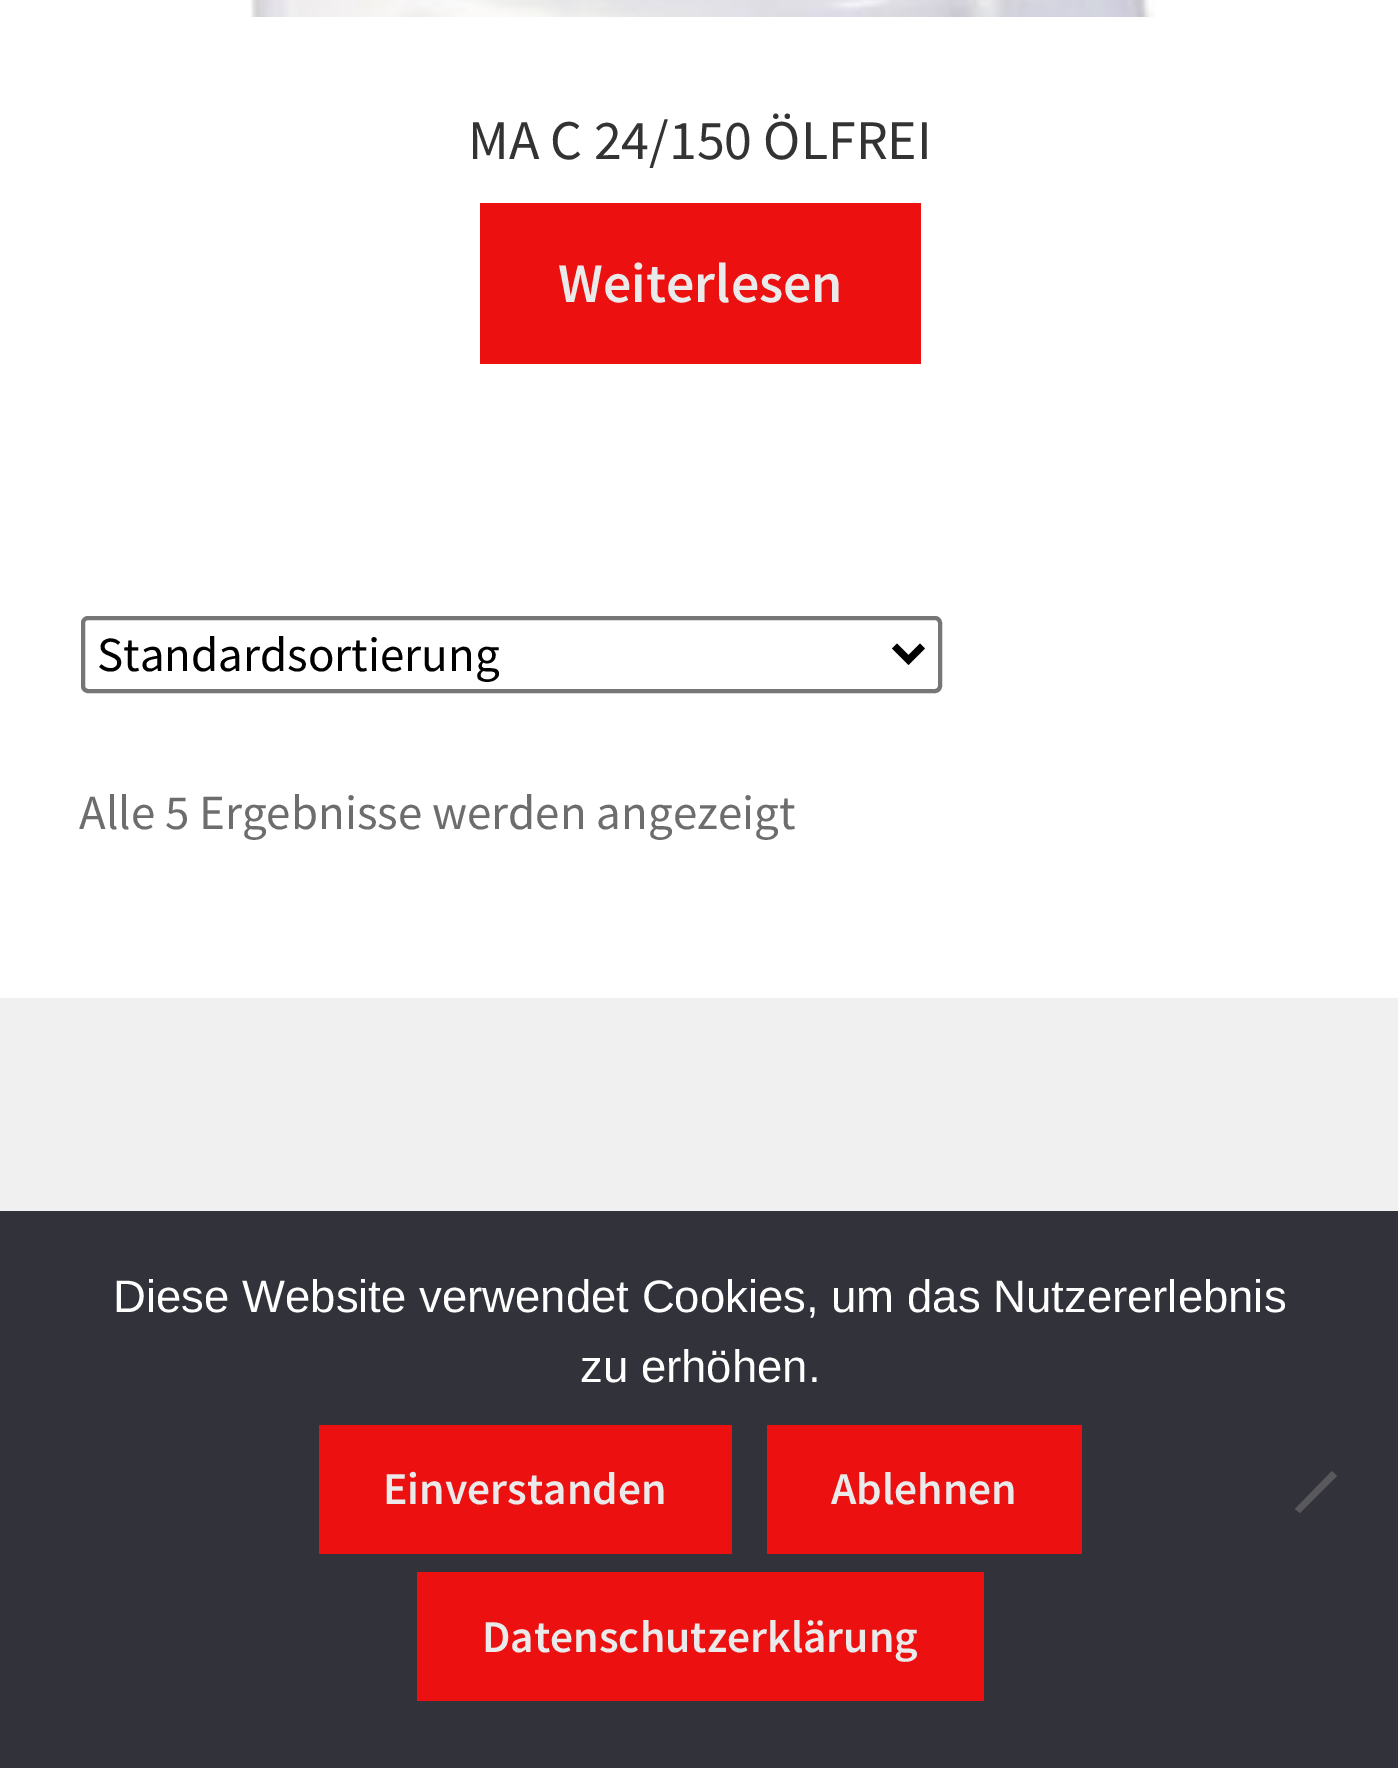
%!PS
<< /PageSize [1398 1768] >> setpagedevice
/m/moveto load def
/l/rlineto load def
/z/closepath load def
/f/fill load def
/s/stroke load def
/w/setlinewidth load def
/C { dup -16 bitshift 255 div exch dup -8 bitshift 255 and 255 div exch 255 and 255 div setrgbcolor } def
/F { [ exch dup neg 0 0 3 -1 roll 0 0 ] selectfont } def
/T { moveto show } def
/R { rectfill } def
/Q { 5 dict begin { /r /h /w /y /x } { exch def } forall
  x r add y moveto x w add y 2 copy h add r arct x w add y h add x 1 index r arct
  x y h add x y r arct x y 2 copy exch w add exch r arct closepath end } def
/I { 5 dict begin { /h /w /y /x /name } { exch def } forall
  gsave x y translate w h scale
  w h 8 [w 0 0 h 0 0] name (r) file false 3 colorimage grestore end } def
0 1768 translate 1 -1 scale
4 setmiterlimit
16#FFFFFF C
0 0 1398 1768 R
(1.rgb) 250 0 905 17 I
/SourceSansPro-Regular 56 F
16#333333 C
(MA C 24/150 ÖLFREI) 468 159 T
16#ED1010 C
480 203 441 161 R
/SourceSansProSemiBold-SemiBold 56 F
16#EAEAEA C
(Weiterlesen) 558 302 T
16#767676 C
4 w
83 618 857 73 5 Q s
16#000000 C
7 w
894.5 646 m 14 14 l 14 -14 l s
/SourceSansPro-Regular 49 F
(Standardsortierung) 97 671 T
16#6D6D6D C
(Alle 5 Ergebnisse werden angezeigt) 79 829 T
16#F0F0F0 C
0 998 1398 213 R
16#32323A C
0 1211 1398 557 R
/LiberationSans-Regular 45.5 F
16#FFFFFF C
(Diese Website verwendet Cookies, um das Nutzererlebnis) 113 1312 T
(zu erhöhen.) 580 1382 T
16#ED1010 C
319 1425 413 129 R
/SourceSansProSemiBold-SemiBold 45.5 F
16#EAEAEA C
(Einverstanden) 383 1504 T
16#ED1010 C
767 1425 315 129 R
16#EAEAEA C
(Ablehnen) 831 1504 T
16#ED1010 C
417 1572 567 129 R
16#EAEAEA C
(Datenschutzerklärung) 482 1652 T
16#59595D C
1332 1471 m 5 5 l -37 37 l -5 -4 l z f
showpage
